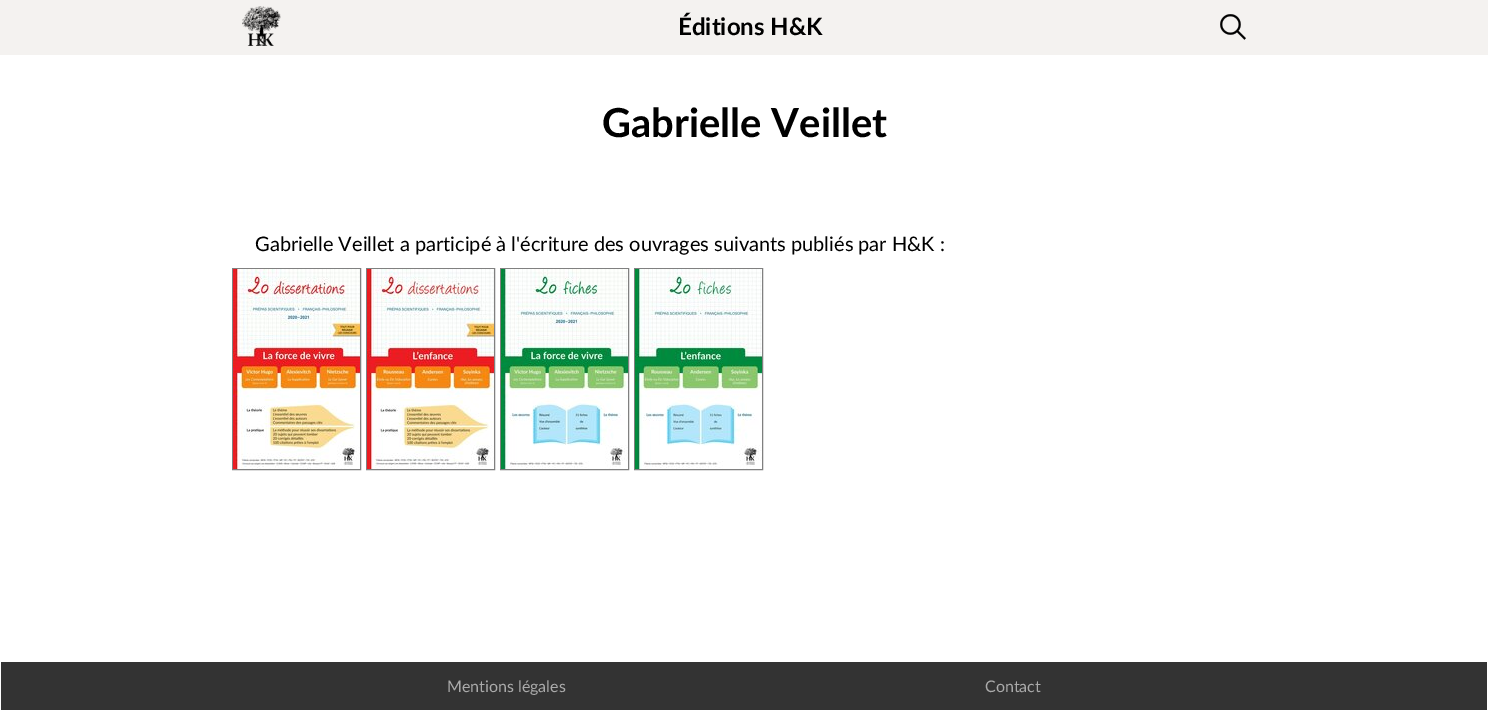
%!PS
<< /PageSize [1488 711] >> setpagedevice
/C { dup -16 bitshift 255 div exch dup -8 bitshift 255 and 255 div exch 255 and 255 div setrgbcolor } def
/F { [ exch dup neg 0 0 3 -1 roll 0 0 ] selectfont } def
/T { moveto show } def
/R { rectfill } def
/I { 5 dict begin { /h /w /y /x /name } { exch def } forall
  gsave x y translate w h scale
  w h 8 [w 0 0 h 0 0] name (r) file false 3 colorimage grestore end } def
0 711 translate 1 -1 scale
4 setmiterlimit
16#FFFFFF C
0 0 1488 711 R
16#F4F2F0 C
0 0 1488 55 R
(1.rgb) 242 6 39 40 I
/Lato-Bold 24 F
16#000000 C
(Éditions H&K) 678 35 T
(2.rgb) 1220 14 26 26 I
/Lato-Bold 40 F
(Gabrielle Veillet) 602 137 T
/Lato-Regular 20 F
(Gabrielle Veillet a participé à l'écriture des ouvrages suivants publiés par H&K :) 255 251 T
16#808080 C
232.5 268.5 128 201 rectstroke
(3.rgb) 233 269 127 200 I
366.5 268.5 128 201 rectstroke
(4.rgb) 367 269 127 200 I
500.5 268.5 128 201 rectstroke
(5.rgb) 501 269 127 200 I
634.5 268.5 128 201 rectstroke
(6.rgb) 635 269 127 200 I
16#333333 C
1 662 1486 48 R
/Lato-Regular 16 F
16#AAAAAA C
(Mentions légales) 447 692 T
(Contact) 985 692 T
showpage
